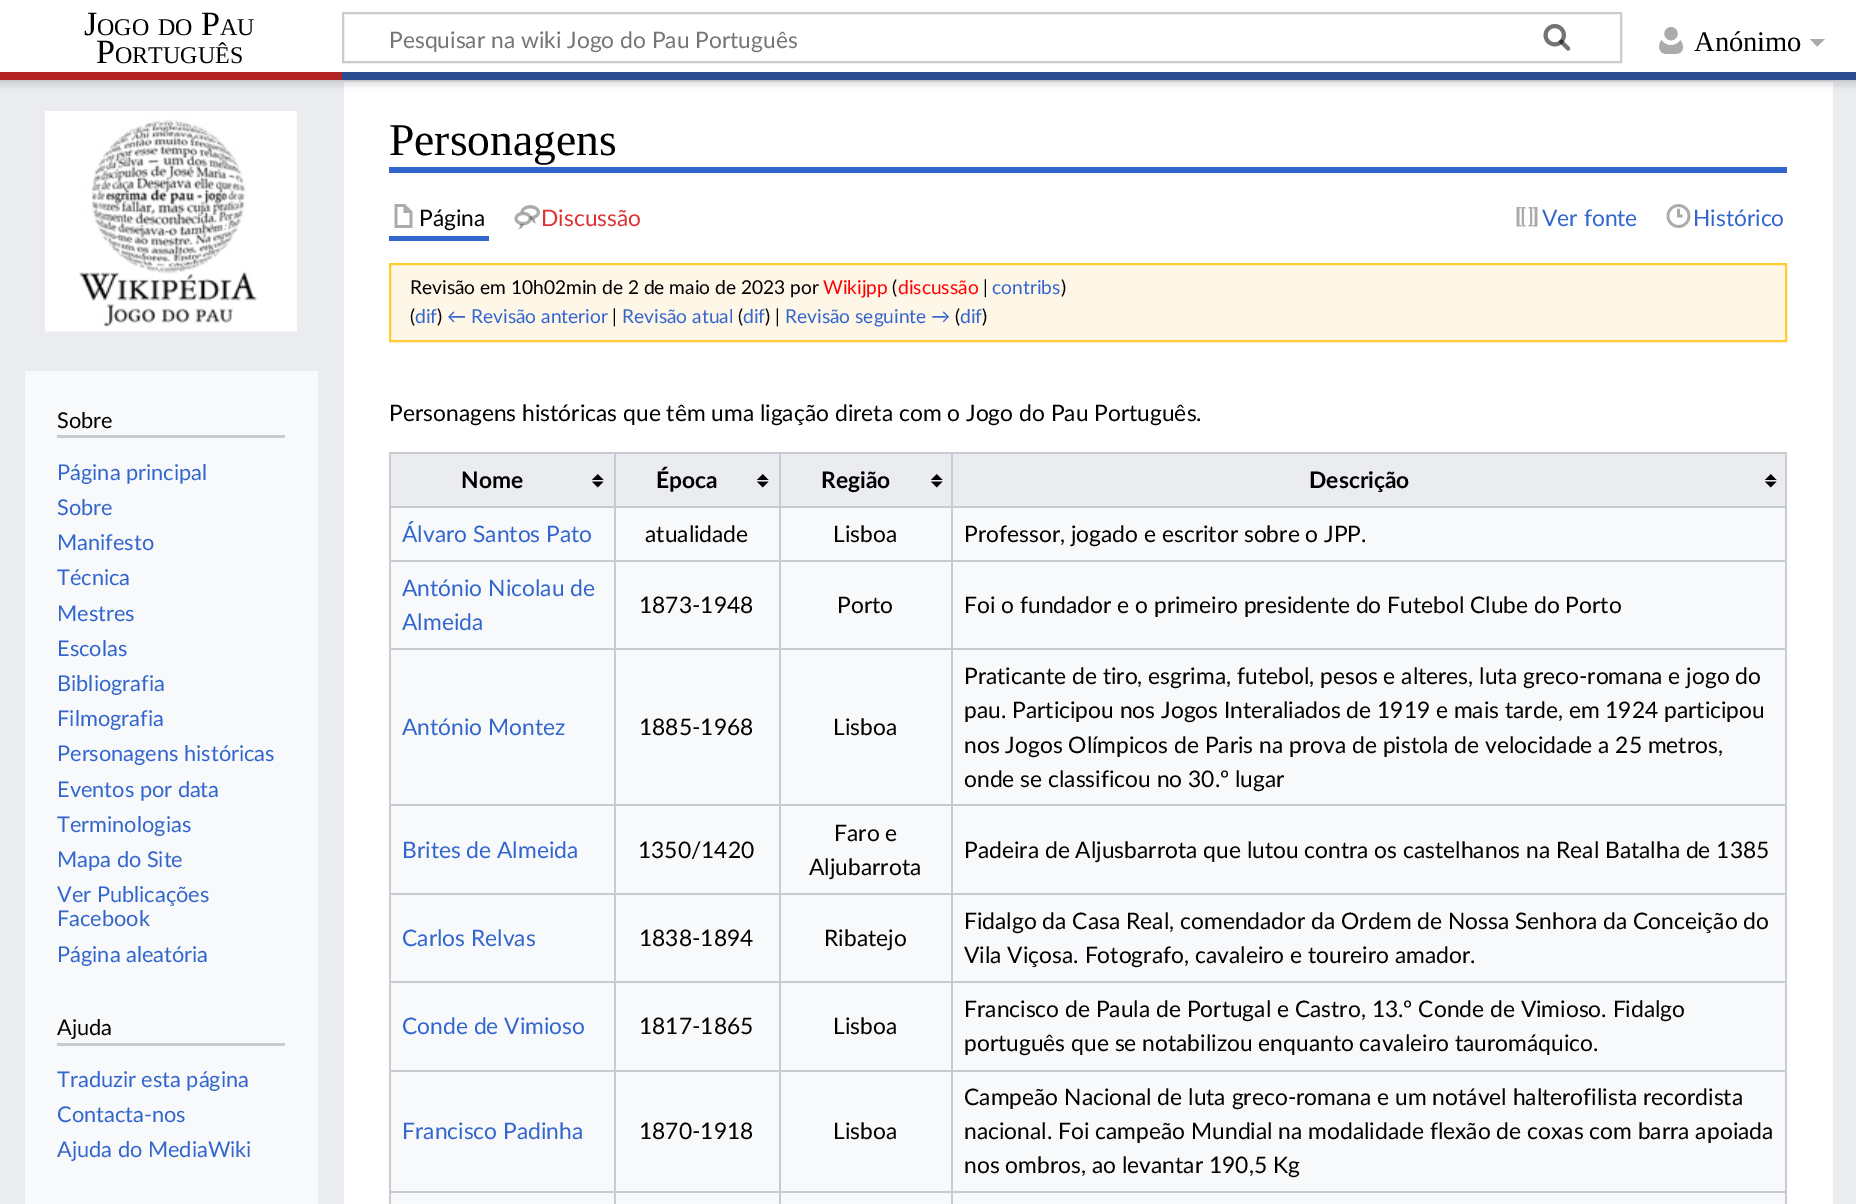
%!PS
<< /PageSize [1856 1204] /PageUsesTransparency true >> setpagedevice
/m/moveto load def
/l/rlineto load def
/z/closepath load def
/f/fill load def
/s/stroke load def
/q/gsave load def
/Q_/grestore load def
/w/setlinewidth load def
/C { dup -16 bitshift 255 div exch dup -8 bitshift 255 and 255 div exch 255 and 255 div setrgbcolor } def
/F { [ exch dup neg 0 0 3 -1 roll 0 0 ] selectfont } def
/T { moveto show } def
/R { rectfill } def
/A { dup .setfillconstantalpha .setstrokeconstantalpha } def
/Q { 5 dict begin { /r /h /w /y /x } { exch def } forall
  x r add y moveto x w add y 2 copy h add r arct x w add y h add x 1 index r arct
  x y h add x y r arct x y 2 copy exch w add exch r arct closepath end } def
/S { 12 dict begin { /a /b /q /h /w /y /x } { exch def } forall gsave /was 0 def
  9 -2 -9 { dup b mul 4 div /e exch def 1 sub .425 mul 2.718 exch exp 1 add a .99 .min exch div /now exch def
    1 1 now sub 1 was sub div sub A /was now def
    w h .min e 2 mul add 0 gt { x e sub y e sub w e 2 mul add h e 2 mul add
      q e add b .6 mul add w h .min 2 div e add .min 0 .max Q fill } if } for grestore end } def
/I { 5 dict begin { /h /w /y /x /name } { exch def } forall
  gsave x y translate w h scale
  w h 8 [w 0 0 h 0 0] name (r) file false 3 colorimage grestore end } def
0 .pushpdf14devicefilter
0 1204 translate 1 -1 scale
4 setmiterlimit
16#EAECF0 C
0 0 1856 1204 R
16#FFFFFF C
344 82 1489 1122 R
16#000000 C
0 72 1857 8 0 1.5 .2 S
-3 74 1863 13 0 2 .07 S
16#FFFFFF C
0 0 1856 72 R
/LiberationSerif-Regular 34 F
16#000000 C
(J) 84 35 T
/LiberationSerif-Regular 24 F
(OGO) 97 35 T
(DO) 158 35 T
/LiberationSerif-Regular 34 F
(P) 201 35 T
/LiberationSerif-Regular 24 F
(AU) 220 35 T
/LiberationSerif-Regular 34 F
(P) 96 63 T
/LiberationSerif-Regular 24 F
(ORTUGUÊS) 115 63 T
16#C8CCD1 C
2 w
343 13 1278 49 rectstroke
(1.rgb) 1543 24 28 27 I
/Lato-Regular 22.8 F
16#757575 C
(Pesquisar na wiki Jogo do Pau Português) 389 48 T
(2.rgb) 1543 24 28 27 I
(3.rgb) 1659 27 24 27 I
/LiberationSerif-Regular 28.5 F
16#000000 C
(Anónimo) 1694 51 T
16#ABABAB C
1825 39 m -8 7.5 l -7 -7.5 l z f
16#B32424 C
0 72 342 8 R
16#2A4B8D C
342 72 1514 8 R
(4.rgb) 45 111 252 221 I
16#F8F9FA C
25 371 293 833 R
16#C8CCD1 C
57 435 228 3 R
/Lato-Regular 21.75 F
16#000000 C
(Sobre) 57 428 T
16#3366CC C
(Página principal) 57 480 T
(Sobre) 57 515 T
(Manifesto) 57 550 T
(Técnica) 57 585 T
(Mestres) 57 621 T
(Escolas) 57 656 T
(Bibliografia) 57 691 T
(Filmografia) 57 726 T
(Personagens históricas) 57 761 T
(Eventos por data) 57 797 T
(Terminologias) 57 832 T
(Mapa do Site) 57 867 T
(Ver Publicações) 57 902 T
(Facebook) 57 926 T
(Página aleatória) 57 962 T
16#C8CCD1 C
57 1043 228 3 R
16#000000 C
(Ajuda) 57 1035 T
16#3366CC C
(Traduzir esta página) 57 1087 T
(Contacta-nos) 57 1122 T
(Ajuda do MediaWiki) 57 1157 T
389 167 1398 6 R
/LiberationSerif-Regular 45.5 F
16#000000 C
(Personagens) 389 155 T
16#3366CC C
389 236 100 5 R
(5.rgb) 394 204 19 24 I
/Lato-Regular 22.8 F
16#000000 C
(Página) 419 226 T
(6.rgb) 514 205 26 25 I
16#DD3333 C
(Discussão) 541 226 T
(7.rgb) 1516 207 22 20 I
16#3366CC C
(Ver fonte) 1542 226 T
(8.rgb) 1666 204 25 24 I
(Histórico) 1693 226 T
16#FEF6E7 C
390 264 m 1396 0 l 0 77 l -1396 0 l z q f Q_
16#FFCC33 C
s
/Lato-Regular 19.15 F
16#000000 C
(Revisão em 10h02min de 2 de maio de 2023 por) 410 294 T
16#FF0000 C
(Wikijpp) 823 294 T
16#000000 C
(\() 892 294 T
16#FF0000 C
(discussão) 898 294 T
16#000000 C
(|) 983 294 T
16#3366CC C
(contribs) 992 294 T
16#000000 C
(\)) 1061 294 T
(\() 410 323 T
16#3366CC C
(dif) 415 323 T
16#000000 C
(\)) 437 323 T
16#3366CC C
(← Revisão anterior) 447 323 T
16#000000 C
(|) 612 323 T
16#3366CC C
(Revisão atual) 622 323 T
16#000000 C
(\() 738 323 T
16#3366CC C
(dif) 743 323 T
16#000000 C
(\) |) 765 323 T
16#3366CC C
(Revisão seguinte →) 785 323 T
16#000000 C
(\() 955 323 T
16#3366CC C
(dif) 960 323 T
16#000000 C
(\)) 982 323 T
/Lato-Regular 22.8 F
(Personagens históricas que têm uma ligação direta com o Jogo do Pau Português.) 389 421 T
16#F8F9FA C
391 508 1394 696 R
16#C8CCD1 C
389 452 1398 2 R
1785 452 2 752 R
389 452 2 752 R
16#EAECF0 C
391 454 223 52 R
(9.rgb) 591 474 13 14 I
/Lato-Bold 22.8 F
16#000000 C
(Nome) 461 488 T
16#EAECF0 C
616 454 163 52 R
(9.rgb) 756 474 13 14 I
16#C8CCD1 C
951 506 836 2 R
951 560 836 2 R
951 648 836 2 R
951 804 836 2 R
951 893 836 2 R
951 981 836 2 R
951 1070 836 2 R
951 1191 836 2 R
951 1191 2 13 R
779 1191 174 2 R
951 1070 2 123 R
779 1070 174 2 R
951 981 2 90 R
779 981 174 2 R
951 893 2 90 R
779 893 174 2 R
951 804 2 90 R
779 804 174 2 R
951 648 2 158 R
779 648 174 2 R
951 560 2 90 R
779 560 174 2 R
951 506 2 55 R
779 506 174 2 R
779 1191 2 13 R
614 1191 166 2 R
779 1070 2 123 R
614 1070 166 2 R
779 981 2 90 R
614 981 166 2 R
779 893 2 90 R
614 893 166 2 R
779 804 2 90 R
614 804 166 2 R
779 648 2 158 R
614 648 166 2 R
779 560 2 90 R
614 560 166 2 R
779 506 2 55 R
614 506 166 2 R
614 1191 2 13 R
389 1191 226 2 R
614 1070 2 123 R
389 1070 226 2 R
614 981 2 90 R
389 981 226 2 R
614 893 2 90 R
389 893 226 2 R
614 804 2 90 R
389 804 226 2 R
614 648 2 158 R
389 648 226 2 R
614 560 2 90 R
389 560 226 2 R
614 506 2 55 R
389 506 226 2 R
614 452 2 55 R
16#000000 C
(Época) 656 488 T
16#EAECF0 C
781 454 170 52 R
(9.rgb) 930 474 13 14 I
16#C8CCD1 C
779 452 2 55 R
16#000000 C
(Região) 821 488 T
16#EAECF0 C
953 454 832 52 R
(9.rgb) 1764 474 13 14 I
16#C8CCD1 C
951 452 2 55 R
16#000000 C
(Descrição) 1309 488 T
/Lato-Regular 22.8 F
16#3366CC C
(Álvaro Santos Pato) 402 542 T
16#000000 C
(atualidade) 645 542 T
(Lisboa) 833 542 T
(Professor, jogado e escritor sobre o JPP.) 964 542 T
16#3366CC C
(António Nicolau de) 402 596 T
(Almeida) 402 630 T
16#000000 C
(1873-1948) 639 613 T
(Porto) 837 613 T
(Foi o fundador e o primeiro presidente do Futebol Clube do Porto) 964 613 T
16#3366CC C
(António Montez) 402 735 T
16#000000 C
(1885-1968) 639 735 T
(Lisboa) 833 735 T
(Praticante de tiro, esgrima, futebol, pesos e alteres, luta greco-romana e jogo do) 964 684 T
(pau. Participou nos Jogos Interaliados de 1919 e mais tarde, em 1924 participou) 964 718 T
(nos Jogos Olímpicos de Paris na prova de pistola de velocidade a 25 metros,) 964 753 T
(onde se classificou no 30.º lugar) 964 787 T
16#3366CC C
(Brites de Almeida) 402 858 T
16#000000 C
(1350/1420) 638 858 T
(Faro e) 834 841 T
(Aljubarrota) 809 875 T
(Padeira de Aljusbarrota que lutou contra os castelhanos na Real Batalha de 1385) 964 858 T
16#3366CC C
(Carlos Relvas) 402 946 T
16#000000 C
(1838-1894) 639 946 T
(Ribatejo) 824 946 T
(Fidalgo da Casa Real, comendador da Ordem de Nossa Senhora da Conceição do) 964 929 T
(Vila Viçosa. Fotografo, cavaleiro e toureiro amador.) 964 963 T
16#3366CC C
(Conde de Vimioso) 402 1034 T
16#000000 C
(1817-1865) 639 1034 T
(Lisboa) 833 1034 T
(Francisco de Paula de Portugal e Castro, 13.º Conde de Vimioso. Fidalgo) 964 1017 T
(português que se notabilizou enquanto cavaleiro tauromáquico.) 964 1051 T
16#3366CC C
(Francisco Padinha) 402 1139 T
16#000000 C
(1870-1918) 639 1139 T
(Lisboa) 833 1139 T
(Campeão Nacional de luta greco-romana e um notável halterofilista recordista) 964 1105 T
(nacional. Foi campeão Mundial na modalidade flexão de coxas com barra apoiada) 964 1139 T
(nos ombros, ao levantar 190,5 Kg) 964 1173 T
.poppdf14devicefilter showpage
